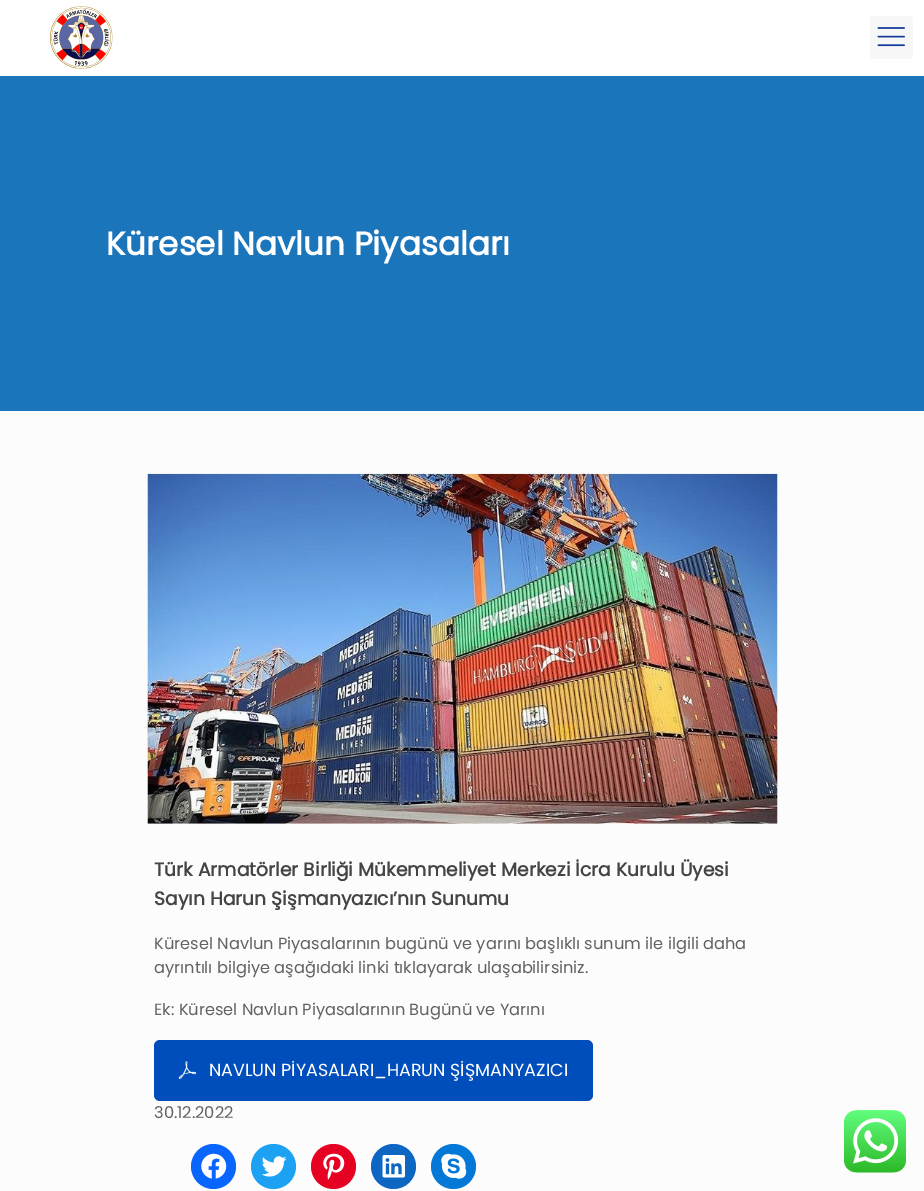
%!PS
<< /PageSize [924 1191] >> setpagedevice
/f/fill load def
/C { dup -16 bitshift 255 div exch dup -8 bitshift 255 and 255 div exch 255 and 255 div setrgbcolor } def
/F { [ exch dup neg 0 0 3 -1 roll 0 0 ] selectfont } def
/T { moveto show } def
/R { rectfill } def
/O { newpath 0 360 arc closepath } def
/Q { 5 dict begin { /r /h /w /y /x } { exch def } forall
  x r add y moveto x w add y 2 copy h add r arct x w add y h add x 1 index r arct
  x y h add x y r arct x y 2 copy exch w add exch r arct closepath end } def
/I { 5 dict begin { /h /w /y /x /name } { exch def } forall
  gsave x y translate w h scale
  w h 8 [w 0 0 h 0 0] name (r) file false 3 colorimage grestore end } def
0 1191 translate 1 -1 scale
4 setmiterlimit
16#FFFFFF C
0 0 924 1191 R
(1.rgb) 50 6 63 63 I
16#F7F7F7 C
870 16 43 43 4 Q f
(2.rgb) 877 27 28 20 I
16#1B75BB C
0 76 924 335 R
/Poppins-Bold 32.5 F
16#FFFFFF C
(Küresel Navlun Piyasaları) 106 255 T
16#FCFCFC C
0 411 924 780 R
(3.rgb) 147 473 631 351 I
/Poppins-Bold 18.75 F
16#444444 C
(Türk Armatörler Birliği Mükemmeliyet Merkezi İcra Kurulu Üyesi) 154 876 T
(Sayın Harun Şişmanyazıcı’nın Sunumu) 154 905 T
/Poppins-Regular 16.25 F
16#626262 C
(Küresel Navlun Piyasalarının bugünü ve yarını başlıklı sunum ile ilgili daha) 154 949 T
(ayrıntılı bilgiye aşağıdaki linki tıklayarak ulaşabilirsiniz.) 154 973 T
(Ek: Küresel Navlun Piyasalarının Bugünü ve Yarını) 154 1015 T
16#004EBC C
154 1040 439 61 6 Q f
(4.rgb) 178 1061 19 18 I
/Poppins-Regular 17.5 F
16#FFFFFF C
(NAVLUN PİYASALARI_HARUN ŞİŞMANYAZICI) 209 1076 T
/Poppins-Regular 16.25 F
16#626262 C
(30.12.2022) 154 1118 T
16#0866FF C
213.5 1166.5 22.5 O f
(5.rgb) 201 1153 26 26 I
16#1DA1F2 C
273.5 1166.5 22.5 O f
(6.rgb) 261 1156 26 21 I
16#E60122 C
333.5 1166.5 22.5 O f
(7.rgb) 323 1153 22 27 I
16#0D66C2 C
393.5 1166.5 22.5 O f
(8.rgb) 382 1155 23 23 I
16#0478D7 C
453.5 1166.5 22.5 O f
(9.rgb) 441 1153 26 26 I
(10.rgb) 844 1110 62 63 I
showpage
